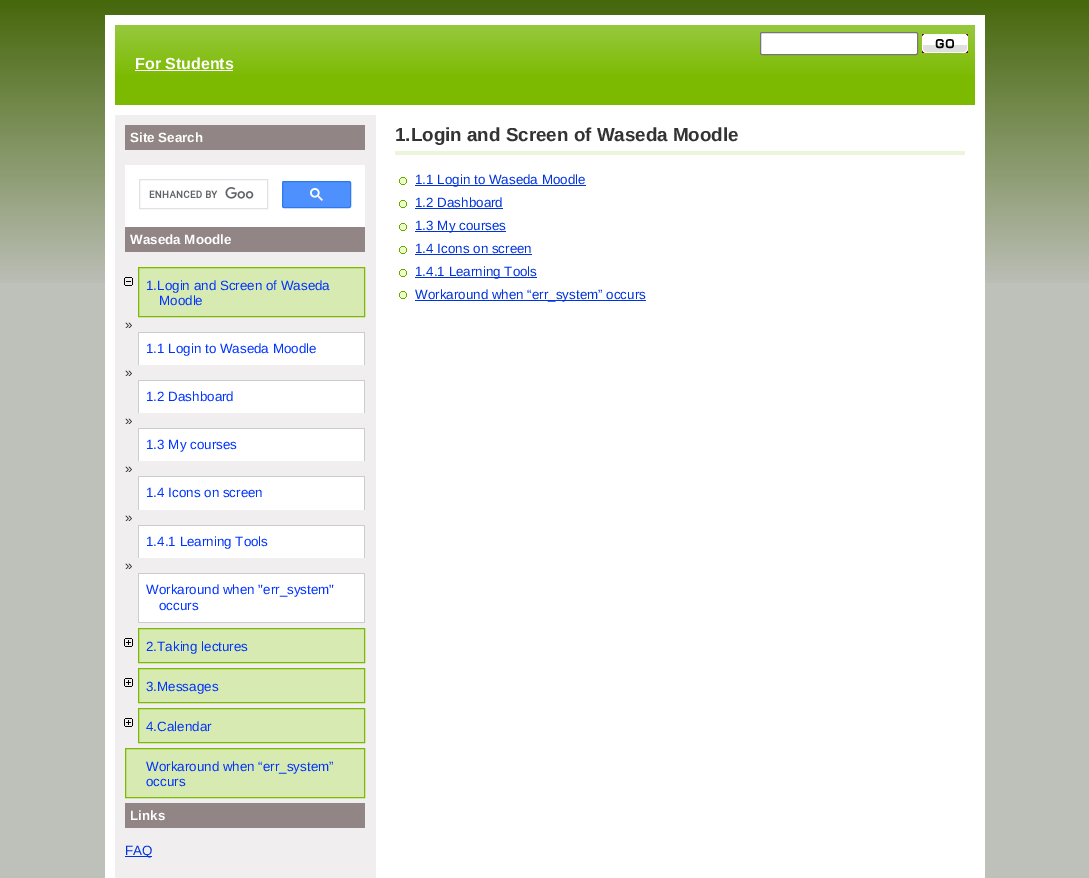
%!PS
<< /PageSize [1089 878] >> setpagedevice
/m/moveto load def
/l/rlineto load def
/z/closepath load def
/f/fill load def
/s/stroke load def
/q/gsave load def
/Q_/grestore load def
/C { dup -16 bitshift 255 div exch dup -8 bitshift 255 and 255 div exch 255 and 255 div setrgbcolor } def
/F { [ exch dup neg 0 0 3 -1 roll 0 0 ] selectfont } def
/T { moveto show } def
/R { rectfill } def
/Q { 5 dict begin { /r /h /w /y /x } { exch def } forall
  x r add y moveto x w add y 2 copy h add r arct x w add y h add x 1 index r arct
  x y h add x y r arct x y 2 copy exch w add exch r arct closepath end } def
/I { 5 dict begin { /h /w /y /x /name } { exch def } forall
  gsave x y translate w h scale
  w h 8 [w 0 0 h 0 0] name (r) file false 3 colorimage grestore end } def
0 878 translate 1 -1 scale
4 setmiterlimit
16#BEC0BA C
0 0 1089 878 R
(1.rgb) 0 0 1089 283 I
16#FFFFFF C
105 15 880 863 R
16#7BBA00 C
115 75 860 30 R
(2.rgb) 115 25 860 50 I
16#FFFFFF C
760.5 32.5 157 22 1.5 Q q f Q_
16#767676 C
s
(3.rgb) 922 34 46 19 I
/LiberationSans-Bold 16 F
16#FFFFFF C
(For Students) 135 69 T
135 70 98 1 R
16#F0EEEE C
115 115 261 763 R
16#928585 C
125 125 240 25 R
/LiberationSans-Bold 13.4 F
16#FFFFFF C
(Site Search) 130 142 T
125 165 240 62 R
16#DFE1E5 C
139.5 179.5 128 29 rectstroke
(4.rgb) 149 187 105 12 I
16#4D90FE C
282.5 181.5 68 26 1.5 Q q f Q_
16#3079ED C
s
(5.rgb) 310 188 13 13 I
16#928585 C
125 227 240 25 R
16#FFFFFF C
(Waseda Moodle) 130 244 T
(6.rgb) 124 277 9 9 I
16#D7EAB2 C
138.5 267.5 m 226 0 l 0 49 l -226 0 l z q f Q_
16#7BBA00 C
s
/LiberationSans-Regular 13.4 F
16#0033FF C
(1.Login and Screen of Waseda) 146 290 T
(Moodle) 159 305 T
16#CCCCCC C
138 622 227 1 R
16#333333 C
(») 125 329 T
16#FFFFFF C
139 333 225 32 R
16#CCCCCC C
138 332 227 1 R
364 332 1 33 R
138 332 1 33 R
16#0033FF C
(1.1 Login to Waseda Moodle) 146 353 T
16#333333 C
(») 125 377 T
16#FFFFFF C
139 381 225 32 R
16#CCCCCC C
138 380 227 1 R
364 380 1 33 R
138 380 1 33 R
16#0033FF C
(1.2 Dashboard) 146 401 T
16#333333 C
(») 125 425 T
16#FFFFFF C
139 429 225 32 R
16#CCCCCC C
138 428 227 1 R
364 428 1 33 R
138 428 1 33 R
16#0033FF C
(1.3 My courses) 146 449 T
16#333333 C
(») 125 473 T
16#FFFFFF C
139 477 225 33 R
16#CCCCCC C
138 476 227 1 R
364 476 1 34 R
138 476 1 34 R
16#0033FF C
(1.4 Icons on screen) 146 497 T
16#333333 C
(») 125 522 T
16#FFFFFF C
139 526 225 32 R
16#CCCCCC C
138 525 227 1 R
364 525 1 33 R
138 525 1 33 R
16#0033FF C
(1.4.1 Learning Tools) 146 546 T
16#333333 C
(») 125 570 T
16#FFFFFF C
139 574 225 48 R
16#CCCCCC C
138 573 227 1 R
364 573 1 49 R
138 573 1 49 R
16#0033FF C
(Workaround when "err_system") 146 594 T
(occurs) 159 610 T
(7.rgb) 124 638 9 9 I
16#D7EAB2 C
138.5 628.5 m 226 0 l 0 34 l -226 0 l z q f Q_
16#7BBA00 C
s
16#0033FF C
(2.Taking lectures) 146 651 T
(7.rgb) 124 678 9 9 I
16#D7EAB2 C
138.5 668.5 m 226 0 l 0 34 l -226 0 l z q f Q_
16#7BBA00 C
s
16#0033FF C
(3.Messages) 146 691 T
(7.rgb) 124 718 9 9 I
16#D7EAB2 C
138.5 708.5 m 226 0 l 0 34 l -226 0 l z q f Q_
16#7BBA00 C
s
16#0033FF C
(4.Calendar) 146 731 T
16#D7EAB2 C
125.5 748.5 m 239 0 l 0 49 l -239 0 l z q f Q_
16#7BBA00 C
s
16#0033FF C
(Workaround when “err_system”) 146 771 T
(occurs) 146 786 T
16#928585 C
125 803 240 25 R
/LiberationSans-Bold 13.4 F
16#FFFFFF C
(Links) 130 820 T
16#0033DD C
125 856 27 1 R
/LiberationSans-Regular 13.4 F
(FAQ) 125 855 T
16#EBF5D9 C
395 151 570 4 R
/LiberationSans-Bold 18.8 F
16#333333 C
(1.Login and Screen of Waseda Moodle) 395 141 T
(8.rgb) 399 177 8 8 I
16#0033DD C
415 185 171 1 R
/LiberationSans-Regular 13.4 F
(1.1 Login to Waseda Moodle) 415 184 T
(8.rgb) 399 200 8 8 I
(1.2 Dashboard) 415 207 T
415 208 88 1 R
(8.rgb) 399 223 8 8 I
415 231 91 1 R
(1.3 My courses) 415 230 T
(8.rgb) 399 246 8 8 I
(1.4 Icons on screen) 415 253 T
415 254 117 1 R
(8.rgb) 399 269 8 8 I
415 277 122 1 R
(1.4.1 Learning Tools) 415 276 T
(8.rgb) 399 291 8 8 I
415 300 231 1 R
(Workaround when “err_system” occurs) 415 299 T
showpage
